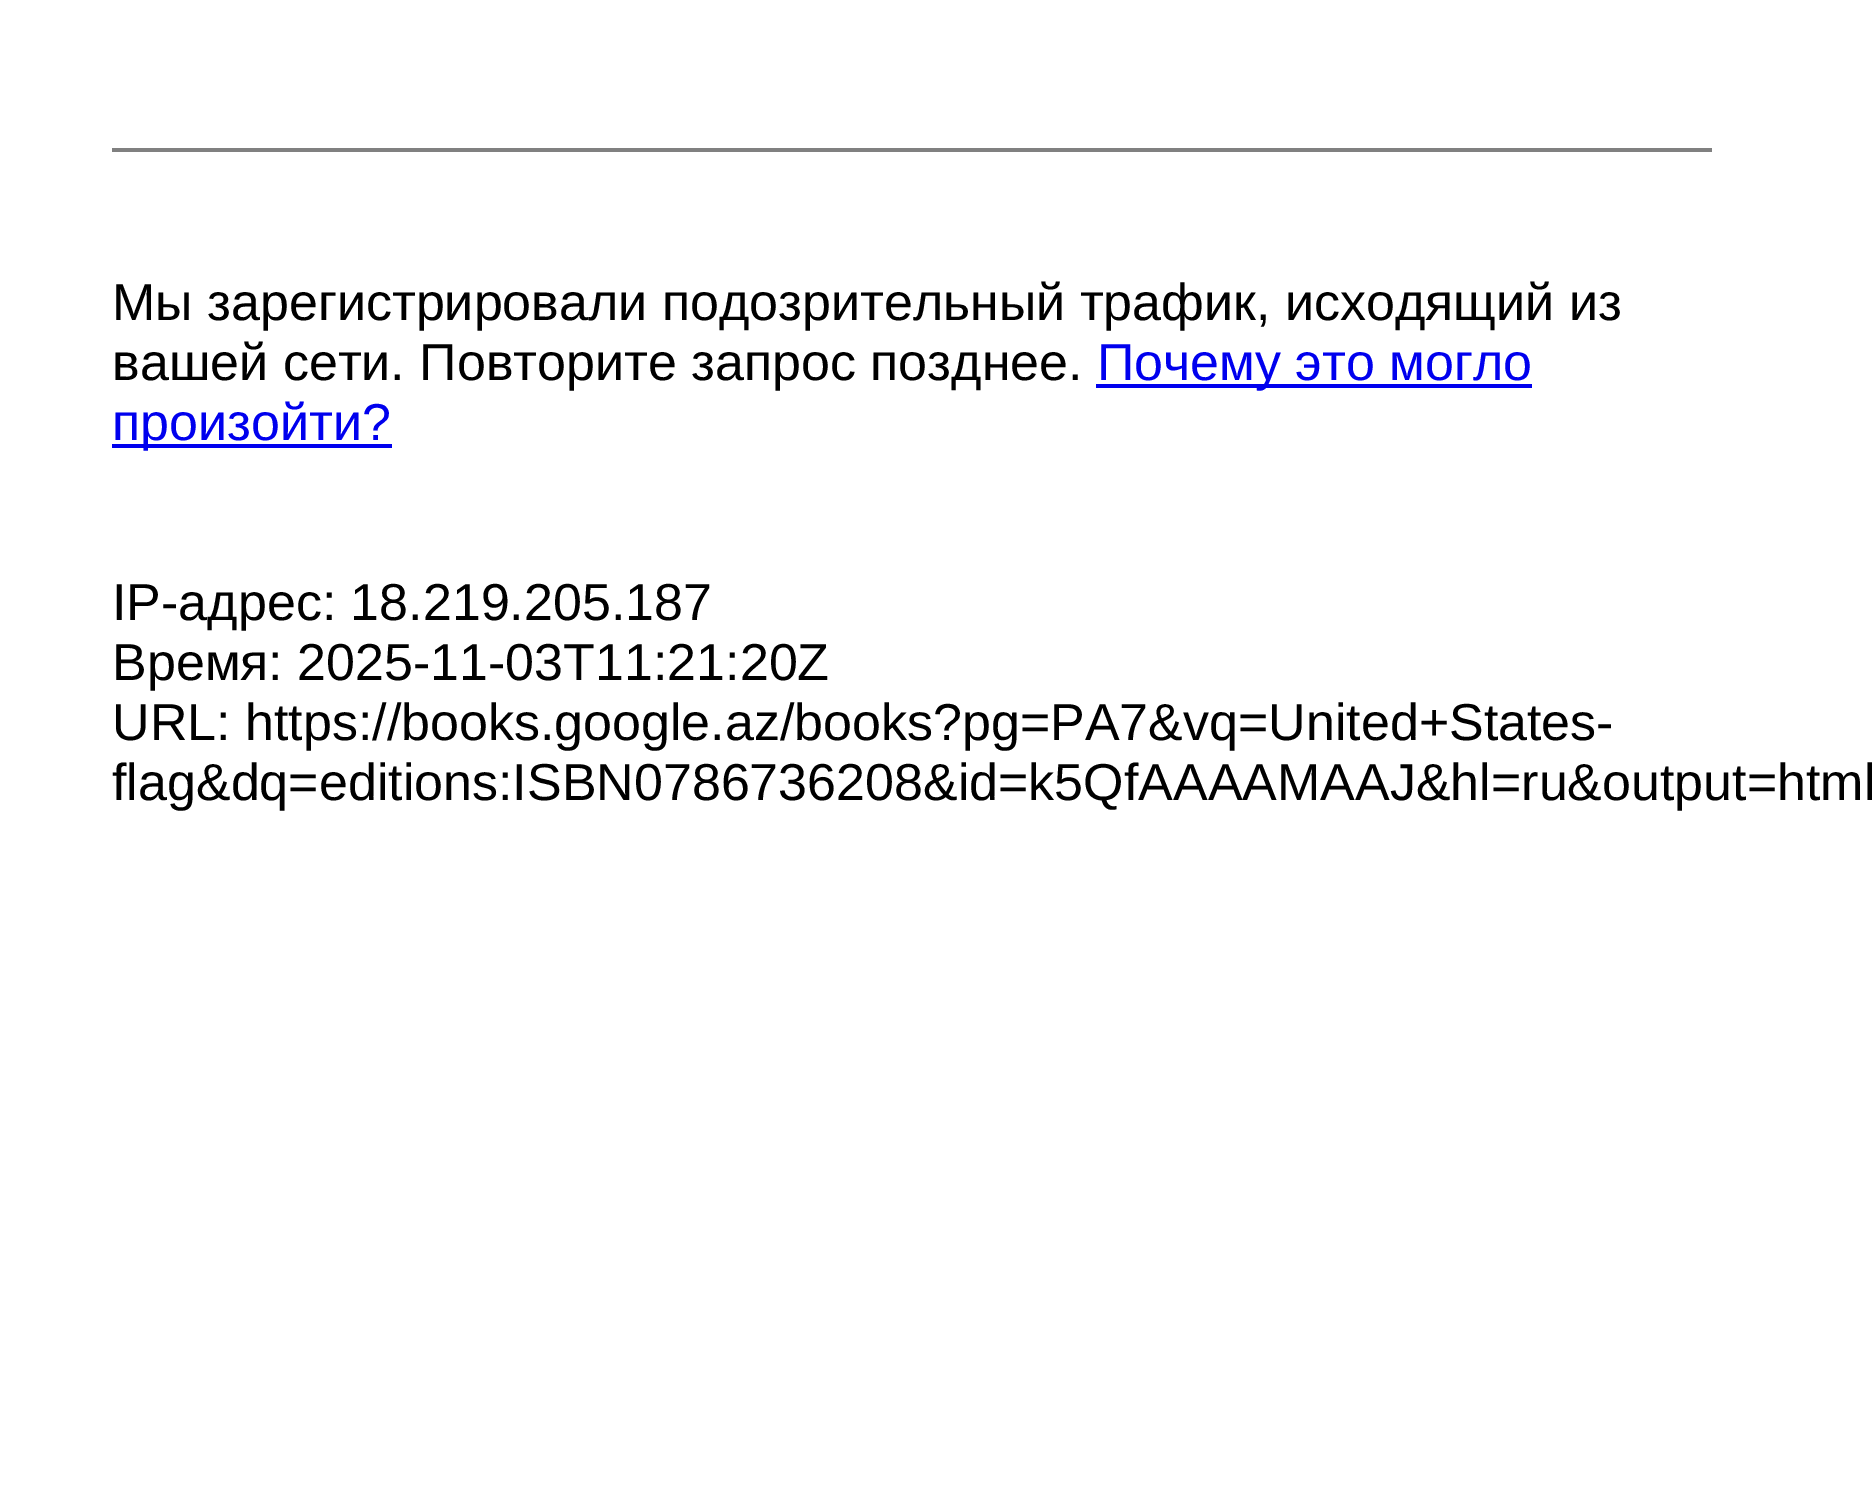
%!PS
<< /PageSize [1872 1486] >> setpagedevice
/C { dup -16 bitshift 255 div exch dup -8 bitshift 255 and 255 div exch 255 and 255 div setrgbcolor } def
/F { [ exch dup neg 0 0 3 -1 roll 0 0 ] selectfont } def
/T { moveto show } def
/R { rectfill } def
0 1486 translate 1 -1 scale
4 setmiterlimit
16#FFFFFF C
0 0 1872 1486 R
16#808080 C
112 148 1600 4 R
/LiberationSans-Regular 52 F
16#000000 C
(Мы зарегистрировали подозрительный трафик, исходящий из) 112 320 T
(вашей сети. Повторите запрос позднее.) 112 380 T
16#0000EE C
1096 384 436 4 R
(Почему это могло) 1097 380 T
112 444 280 4 R
(произойти?) 112 440 T
16#000000 C
(IP-адрес: 18.219.205.187) 112 620 T
(Время: 2025-11-03T11:21:20Z) 112 680 T
(URL: https://books.google.az/books?pg=PA7&vq=United+States-) 112 740 T
(flag&dq=editions:ISBN0786736208&id=k5QfAAAAMAAJ&hl=ru&output=html) 112 800 T
showpage
